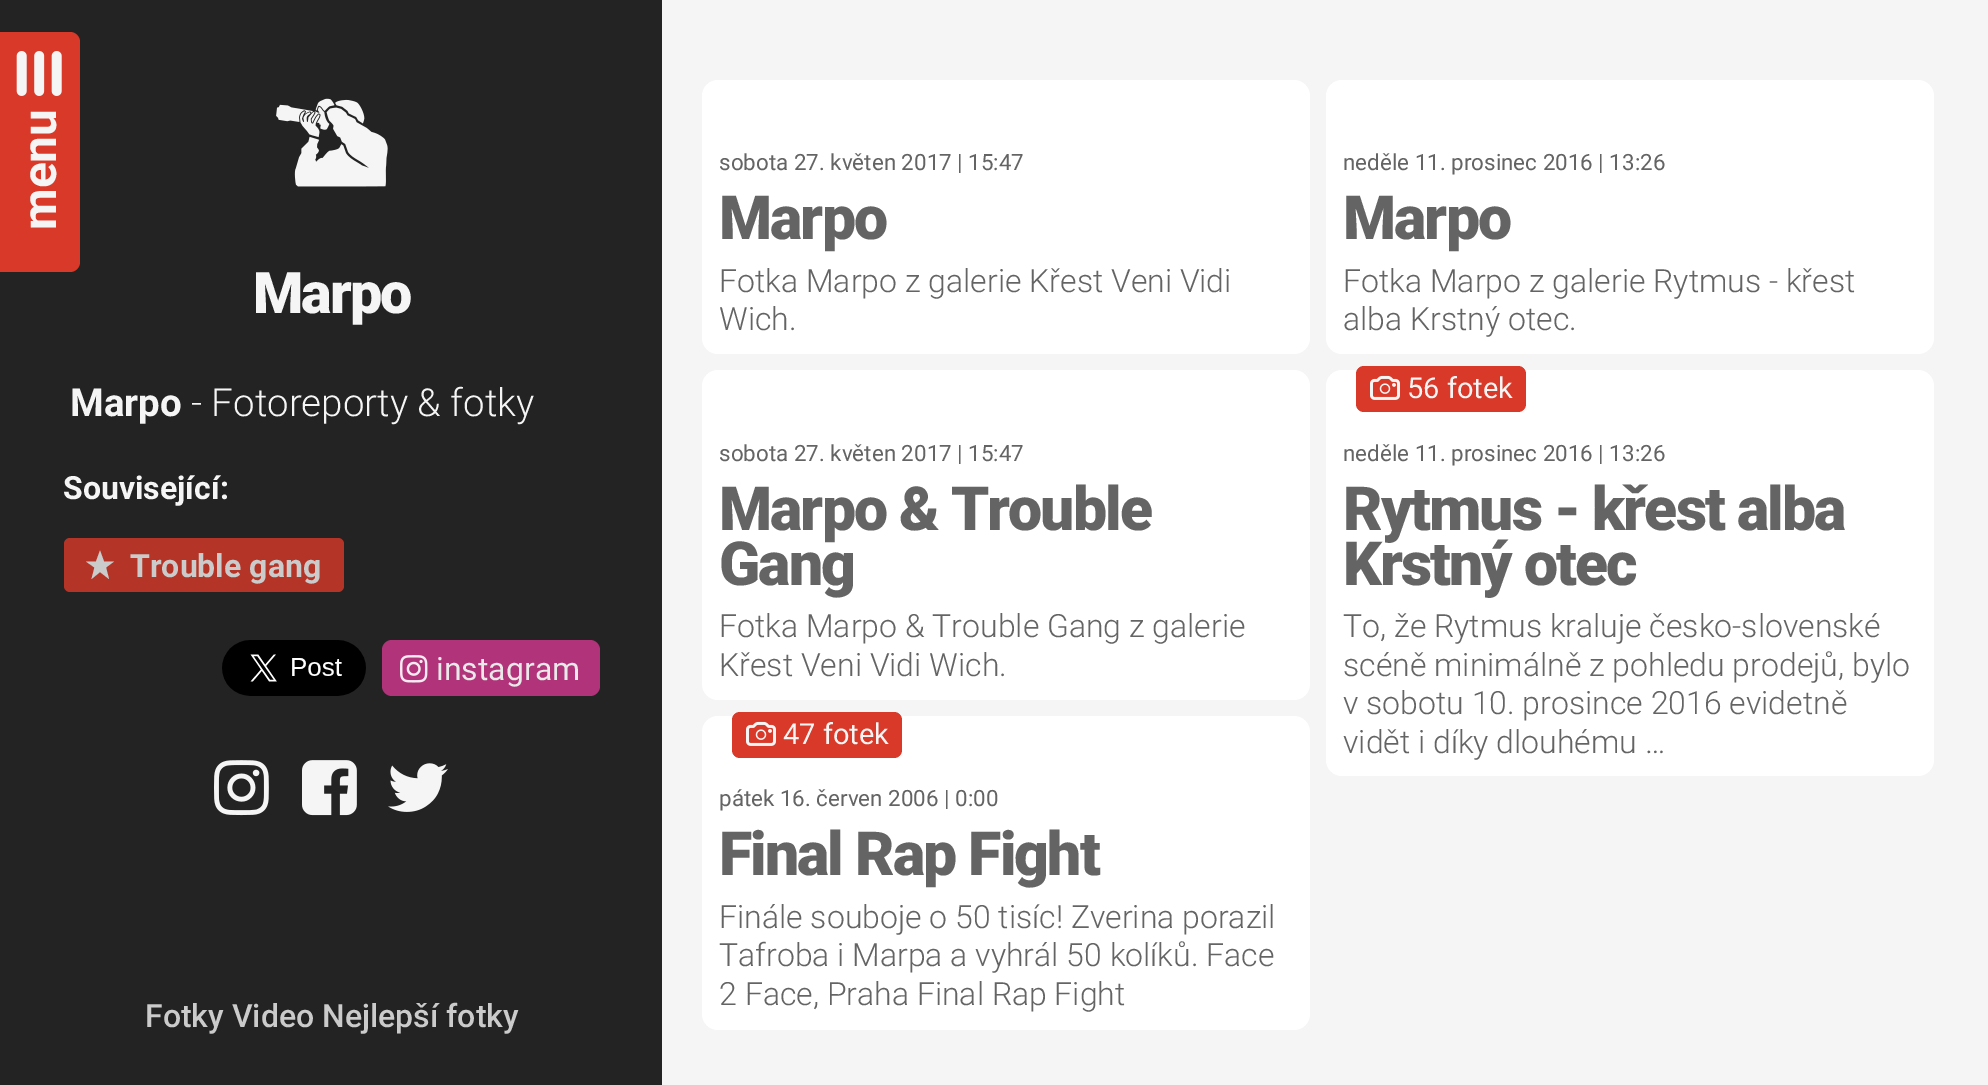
%!PS
<< /PageSize [1988 1085] >> setpagedevice
/m/moveto load def
/l/rlineto load def
/c/rcurveto load def
/z/closepath load def
/f/fill load def
/q/gsave load def
/Q_/grestore load def
/C { dup -16 bitshift 255 div exch dup -8 bitshift 255 and 255 div exch 255 and 255 div setrgbcolor } def
/F { [ exch dup neg 0 0 3 -1 roll 0 0 ] selectfont } def
/T { moveto show } def
/R { rectfill } def
/Q { 5 dict begin { /r /h /w /y /x } { exch def } forall
  x r add y moveto x w add y 2 copy h add r arct x w add y h add x 1 index r arct
  x y h add x y r arct x y 2 copy exch w add exch r arct closepath end } def
/I { 5 dict begin { /h /w /y /x /name } { exch def } forall
  gsave x y translate w h scale
  w h 8 [w 0 0 h 0 0] name (r) file false 3 colorimage grestore end } def
0 1085 translate 1 -1 scale
4 setmiterlimit
16#232323 C
0 0 1988 1085 R
16#D83928 C
0 32 m 70 0 l 5.5 0 10 4.5 10 10 c 0 220 l 0 5.5 -4.5 10 -10 10 c -70 0 l z f
(1.rgb) 16 51 46 45 I
/Roboto-Bold 48 F
16#F5F5F5 C
q 56 230 translate -90 rotate 0 0 m (menu) show Q_
(2.rgb) 276 98 112 89 I
/Roboto-Black 57.5 F
253 313 m -2 0 (Marpo) ashow
/Roboto-Bold 38.5 F
(Marpo) 70 416 T
/Roboto-Light 38.5 F
(- Fotoreporty & fotky) 191 416 T
/Roboto-Bold 32 F
(Související:) 63 499 T
16#B43527 C
64 538 280 54 6 Q f
16#CBCBCB C
100 550.5 m 4 11 l 10 0 l -8 6 l 3 11.5 l -9 -7 l -8.5 7 l 3 -11.5 l -8.5 -6 l 10 0 l z f
(Trouble gang) 130 577 T
(3.rgb) 222 640 144 56 I
16#B1337A C
382 640 218 56 10 Q f
(4.rgb) 400 655 28 28 I
/Roboto-Regular 32 F
16#E9E9E9 C
(instagram) 436 680 T
(5.rgb) 214 760 55 56 I
(6.rgb) 302 760 55 56 I
(7.rgb) 388 763 60 49 I
16#F5F5F5 C
662 0 1326 1085 R
16#FFFFFF C
702 80 608 274 16 Q f
/Roboto-Regular 22.4 F
16#646464 C
(sobota 27. květen 2017 | 15:47) 719 170 T
/Roboto-Black 60.75 F
719 239 m -2 0 (Marpo) ashow
/Roboto-Light 32 F
(Fotka Marpo z galerie Křest Veni Vidi) 719 292 T
(Wich.) 719 330 T
16#FFFFFF C
702 370 608 330 16 Q f
/Roboto-Regular 22.4 F
16#646464 C
(sobota 27. květen 2017 | 15:47) 719 461 T
/Roboto-Black 60.75 F
719 530 m -2 0 (Marpo & Trouble) ashow
719 585 m -2 0 (Gang) ashow
/Roboto-Light 32 F
(Fotka Marpo & Trouble Gang z galerie) 719 637 T
(Křest Veni Vidi Wich.) 719 676 T
16#FFFFFF C
702 716 608 314 16 Q f
16#D83928 C
732 712 170 46 8 Q f
(8.rgb) 746 721 30 25 I
/Roboto-Regular 29 F
16#F5F5F5 C
(47 fotek) 783 744 T
/Roboto-Regular 22.4 F
16#646464 C
(pátek 16. červen 2006 | 0:00) 719 806 T
/Roboto-Black 60.75 F
719 875 m -2 0 (Final Rap Fight) ashow
/Roboto-Light 32 F
(Finále souboje o 50 tisíc! Zverina porazil) 719 928 T
(Tafroba i Marpa a vyhrál 50 kolíků. Face) 719 966 T
(2 Face, Praha Final Rap Fight) 719 1005 T
16#FFFFFF C
1326 80 608 274 16 Q f
/Roboto-Regular 22.4 F
16#646464 C
(neděle 11. prosinec 2016 | 13:26) 1343 170 T
/Roboto-Black 60.75 F
1343 239 m -2 0 (Marpo) ashow
/Roboto-Light 32 F
(Fotka Marpo z galerie Rytmus - křest) 1343 292 T
(alba Krstný otec.) 1343 330 T
16#FFFFFF C
1326 370 608 406 16 Q f
16#D83928 C
1356 366 170 46 8 Q f
(8.rgb) 1370 375 30 25 I
/Roboto-Regular 29 F
16#F5F5F5 C
(56 fotek) 1407 398 T
/Roboto-Regular 22.4 F
16#646464 C
(neděle 11. prosinec 2016 | 13:26) 1343 461 T
/Roboto-Black 60.75 F
1343 530 m -2 0 (Rytmus - křest alba) ashow
1343 585 m -2 0 (Krstný otec) ashow
/Roboto-Light 32 F
(To, že Rytmus kraluje česko-slovenské) 1343 637 T
(scéně minimálně z pohledu prodejů, bylo) 1343 676 T
(v sobotu 10. prosince 2016 evidetně) 1343 714 T
(vidět i díky dlouhému …) 1343 753 T
/Roboto-Medium 32 F
16#CBCBCB C
(Fotky Video Nejlepší fotky) 145 1027 T
showpage
